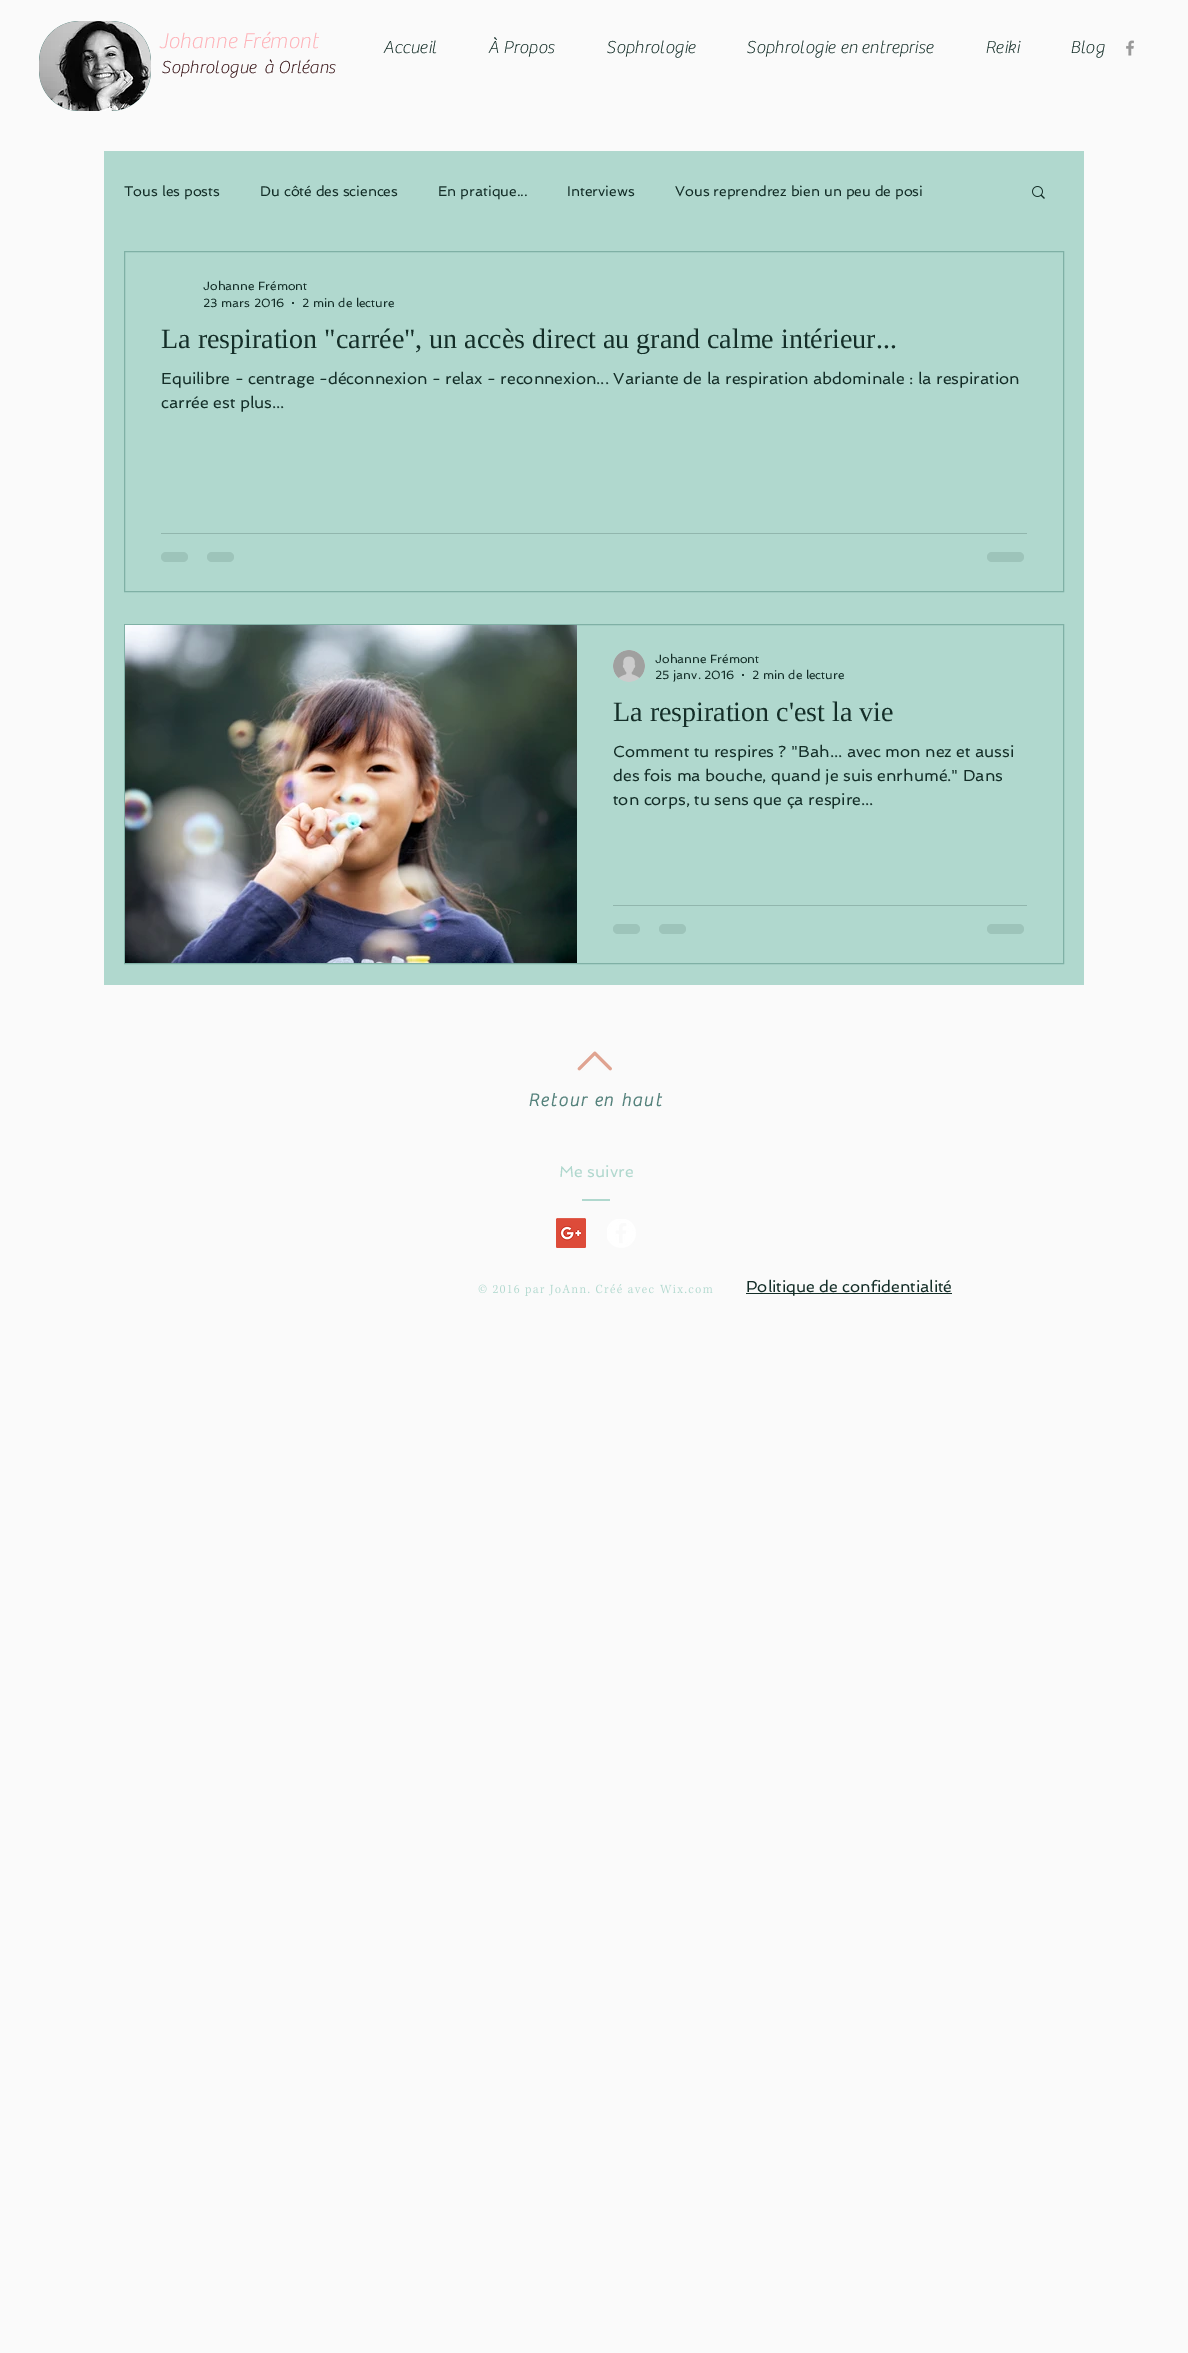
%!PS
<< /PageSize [1188 2353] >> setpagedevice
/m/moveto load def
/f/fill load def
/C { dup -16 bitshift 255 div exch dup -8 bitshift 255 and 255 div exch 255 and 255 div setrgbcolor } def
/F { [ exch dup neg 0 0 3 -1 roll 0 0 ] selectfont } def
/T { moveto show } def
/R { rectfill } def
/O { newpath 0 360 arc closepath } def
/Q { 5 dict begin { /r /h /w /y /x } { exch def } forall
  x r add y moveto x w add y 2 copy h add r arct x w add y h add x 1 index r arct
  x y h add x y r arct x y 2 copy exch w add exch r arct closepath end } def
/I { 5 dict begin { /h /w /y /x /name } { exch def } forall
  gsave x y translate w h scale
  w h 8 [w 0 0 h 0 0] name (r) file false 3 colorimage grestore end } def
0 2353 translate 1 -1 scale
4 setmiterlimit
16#FAFAFA C
0 0 1188 2353 R
16#55827C C
39 21 112 90 40 Q f
(1.rgb) 39 21 112 90 I
/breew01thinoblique-Thin 22 F
16#FFB3B9 C
(Johanne Frémont) 159 48 T
/breew01thinoblique-Thin 18 F
16#142E28 C
(Accueil) 383 53 T
(À Propos) 488 53 T
(Sophrologie) 606 53 T
(Sophrologie en entreprise) 746 53 T
(Reiki) 985 53 T
(Blog) 1070 53 T
(2.rgb) 1126 40 8 16 I
16#361215 C
(Sophrologue  à Orléans) 161 73 T
16#B0D8CE C
104 151 980 834 R
/Spinnaker-Regular 14 F
16#142E28 C
(Tous les posts) 124 196 T
(Du côté des sciences) 260 196 T
(En pratique...) 438 196 T
(Interviews) 567 196 T
(Vous reprendrez bien un peu de posi) 675 196 T
(3.rgb) 1032 186 13 13 I
16#7FB0A5 C
124.5 251.5 939 340 rectstroke
/Spinnaker-Regular 12 F
16#142E28 C
(Johanne Frémont) 203 290 T
(23 mars 2016) 203 307 T
293 303 1 O f
(2 min de lecture) 302 307 T
/LiberationSerif-Regular 28 F
(La respiration "carrée", un accès direct au grand calme intérieur...) 161 348 T
/Spinnaker-Regular 16 F
(Equilibre - centrage -déconnexion - relax - reconnexion... Variante de la respiration abdominale : la respiration) 161 384 T
(carrée est plus...) 161 408 T
16#91B6AD C
161 533 866 1 R
16#9DC4BA C
161 552 27 10 5 Q f
207 552 27 10 5 Q f
987 552 37 10 5 Q f
16#7FB0A5 C
124.5 624.5 939 339 rectstroke
(4.rgb) 125 625 452 338 I
(5.rgb) 613 650 32 32 I
/Spinnaker-Regular 12 F
16#142E28 C
(Johanne Frémont) 655 663 T
(25 janv. 2016) 655 679 T
743 675 1 O f
(2 min de lecture) 752 679 T
/LiberationSerif-Regular 28 F
(La respiration c'est la vie) 613 721 T
/Spinnaker-Regular 16 F
(Comment tu respires ? "Bah... avec mon nez et aussi) 613 757 T
(des fois ma bouche, quand je suis enrhumé." Dans) 613 781 T
(ton corps, tu sens que ça respire...) 613 805 T
16#91B6AD C
613 905 414 1 R
16#9DC4BA C
613 924 27 10 5 Q f
659 924 27 10 5 Q f
987 924 37 10 5 Q f
(6.rgb) 577 1051 35 20 I
/breew01thinoblique-Bold 18 F
16#55827C C
528 1106 m 1.75 0 (Retour en haut) ashow
/Spinnaker-Regular 16 F
16#B0D8CE C
(Me suivre) 559 1177 T
582 1199 28 2 R
(7.rgb) 556 1218 30 30 I
(8.rgb) 607 1219 29 29 I
(9.rgb) 478 1284 176 12 I
(10.rgb) 660 1284 53 10 I
16#142E28 C
746 1293 206 1 R
(Politique de confidentialité) 746 1292 T
showpage
